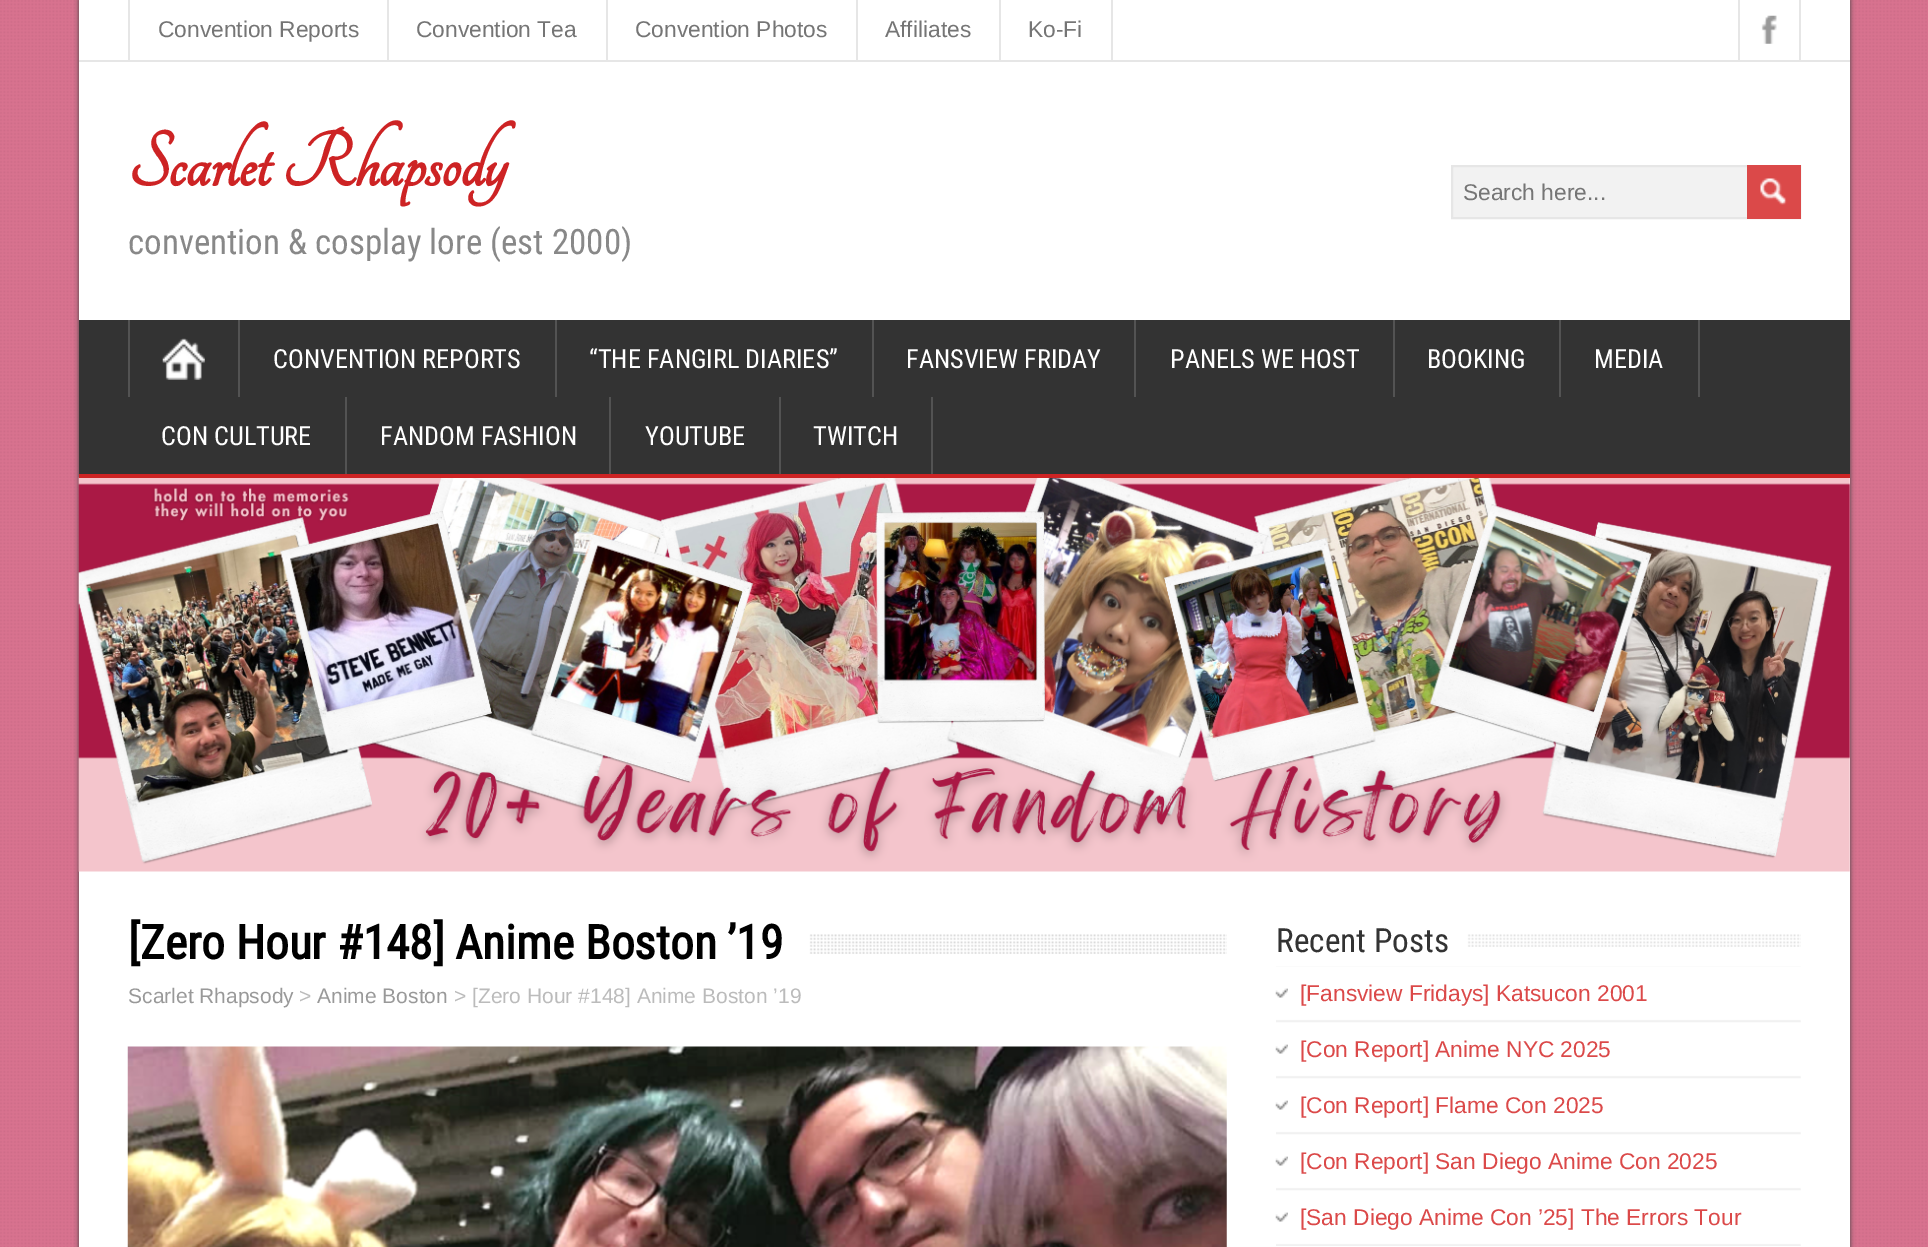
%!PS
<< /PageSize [1928 1247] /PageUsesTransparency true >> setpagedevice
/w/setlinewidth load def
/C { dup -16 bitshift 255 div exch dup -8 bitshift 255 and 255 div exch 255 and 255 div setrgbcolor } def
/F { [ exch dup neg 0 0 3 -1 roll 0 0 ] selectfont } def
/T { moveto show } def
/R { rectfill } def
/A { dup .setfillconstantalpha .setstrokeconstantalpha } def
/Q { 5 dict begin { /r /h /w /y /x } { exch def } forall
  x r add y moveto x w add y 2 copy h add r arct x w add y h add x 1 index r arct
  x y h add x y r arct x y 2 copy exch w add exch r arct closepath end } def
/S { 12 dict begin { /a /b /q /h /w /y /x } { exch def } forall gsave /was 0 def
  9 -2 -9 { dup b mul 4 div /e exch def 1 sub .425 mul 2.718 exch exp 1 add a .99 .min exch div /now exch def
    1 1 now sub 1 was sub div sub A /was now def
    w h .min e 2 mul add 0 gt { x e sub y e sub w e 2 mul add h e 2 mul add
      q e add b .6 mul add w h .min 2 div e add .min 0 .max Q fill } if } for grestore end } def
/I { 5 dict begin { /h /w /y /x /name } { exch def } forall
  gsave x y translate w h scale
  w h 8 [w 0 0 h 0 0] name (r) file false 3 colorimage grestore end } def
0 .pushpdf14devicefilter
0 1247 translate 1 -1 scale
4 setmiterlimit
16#D8728F C
0 0 1928 1247 R
(1.rgb) 0 0 1927 1247 I
16#444444 C
79 0 1771 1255 0 2.5 1 S
16#FFFFFF C
79 0 1771 1247 R
16#E6E6E6 C
79 60 1771 2 R
128 0 2 60 R
387 0 2 60 R
/LiberationSans-Regular 22.75 F
16#757575 C
(Convention Reports) 158 37 T
16#E6E6E6 C
606 0 2 60 R
16#757575 C
(Convention Tea) 416 37 T
16#E6E6E6 C
856 0 2 60 R
16#757575 C
(Convention Photos) 635 37 T
16#E6E6E6 C
999 0 2 60 R
16#757575 C
(Affiliates) 885 37 T
16#E6E6E6 C
1111 0 2 60 R
16#757575 C
(Ko-Fi) 1028 37 T
16#E6E6E6 C
1738 0 2 60 R
(2.rgb) 1761 15 16 29 I
1799 0 2 60 R
/Tangerine-Bold 84 F
16#CD2324 C
(Scarlet Rhapsody) 128 186 T
16#F2F2F2 C
1453 167 294 50 R
16#E6E6E6 C
2 w
1452 166 348 52 rectstroke
/LiberationSans-Regular 22.75 F
16#757575 C
(Search here...) 1463 200 T
16#DB4949 C
1747 165 54 54 R
(3.rgb) 1760 178 27 27 I
/RobotoCondensed-Regular 35 F
16#888888 C
(convention & cosplay lore \(est 2000\)) 128 254 T
16#333333 C
79 320 1771 154 R
(5.rgb) 78 477 1772 395 I
16#CD2324 C
79 474 1771 4 R
(4.rgb) 162 338 43 42 I
16#535353 C
238 320 2 77 R
128 320 2 77 R
555 320 2 77 R
/RobotoCondensed-Regular 26.25 F
16#FFFFFF C
(CONVENTION REPORTS) 273 368 T
16#535353 C
872 320 2 77 R
16#FFFFFF C
(“THE FANGIRL DIARIES”) 589 368 T
16#535353 C
1134 320 2 77 R
16#FFFFFF C
(FANSVIEW FRIDAY) 906 368 T
16#535353 C
1393 320 2 77 R
16#FFFFFF C
(PANELS WE HOST) 1170 368 T
16#535353 C
1559 320 2 77 R
16#FFFFFF C
(BOOKING) 1427 368 T
16#535353 C
1698 320 2 77 R
16#FFFFFF C
(MEDIA) 1594 368 T
16#535353 C
345 397 2 77 R
16#FFFFFF C
(CON CULTURE) 161 445 T
16#535353 C
609 397 2 77 R
16#FFFFFF C
(FANDOM FASHION) 380 445 T
16#535353 C
779 397 2 77 R
16#FFFFFF C
(YOUTUBE) 645 445 T
16#535353 C
931 397 2 77 R
16#FFFFFF C
(TWITCH) 813 445 T
(6.rgb) 809 934 418 20 I
/RobotoCondensed-Bold 47.25 F
16#000000 C
([Zero Hour #148] Anime Boston ’19) 128 959 T
/LiberationSans-Regular 21 F
16#999999 C
(Scarlet Rhapsody) 128 1003 T
16#BBBBBB C
(>) 299 1003 T
16#999999 C
(Anime Boston) 317 1003 T
16#BBBBBB C
(> [Zero Hour #148] Anime Boston ’19) 454 1003 T
(7.rgb) 127 1046 1100 201 I
(8.rgb) 1467 934 334 13 I
/RobotoCondensed-Regular 33.25 F
16#333333 C
(Recent Posts) 1276 952 T
(9.rgb) 1276 966 525 280 I
(10.rgb) 1275 988 13 10 I
/LiberationSans-Regular 22.75 F
16#DB4949 C
([Fansview Fridays] Katsucon 2001) 1300 1001 T
(10.rgb) 1275 1044 13 10 I
([Con Report] Anime NYC 2025) 1300 1057 T
(10.rgb) 1275 1100 13 10 I
([Con Report] Flame Con 2025) 1300 1113 T
(10.rgb) 1275 1156 13 10 I
([Con Report] San Diego Anime Con 2025) 1300 1169 T
(10.rgb) 1275 1212 13 10 I
([San Diego Anime Con ’25] The Errors Tour) 1300 1225 T
.poppdf14devicefilter showpage
